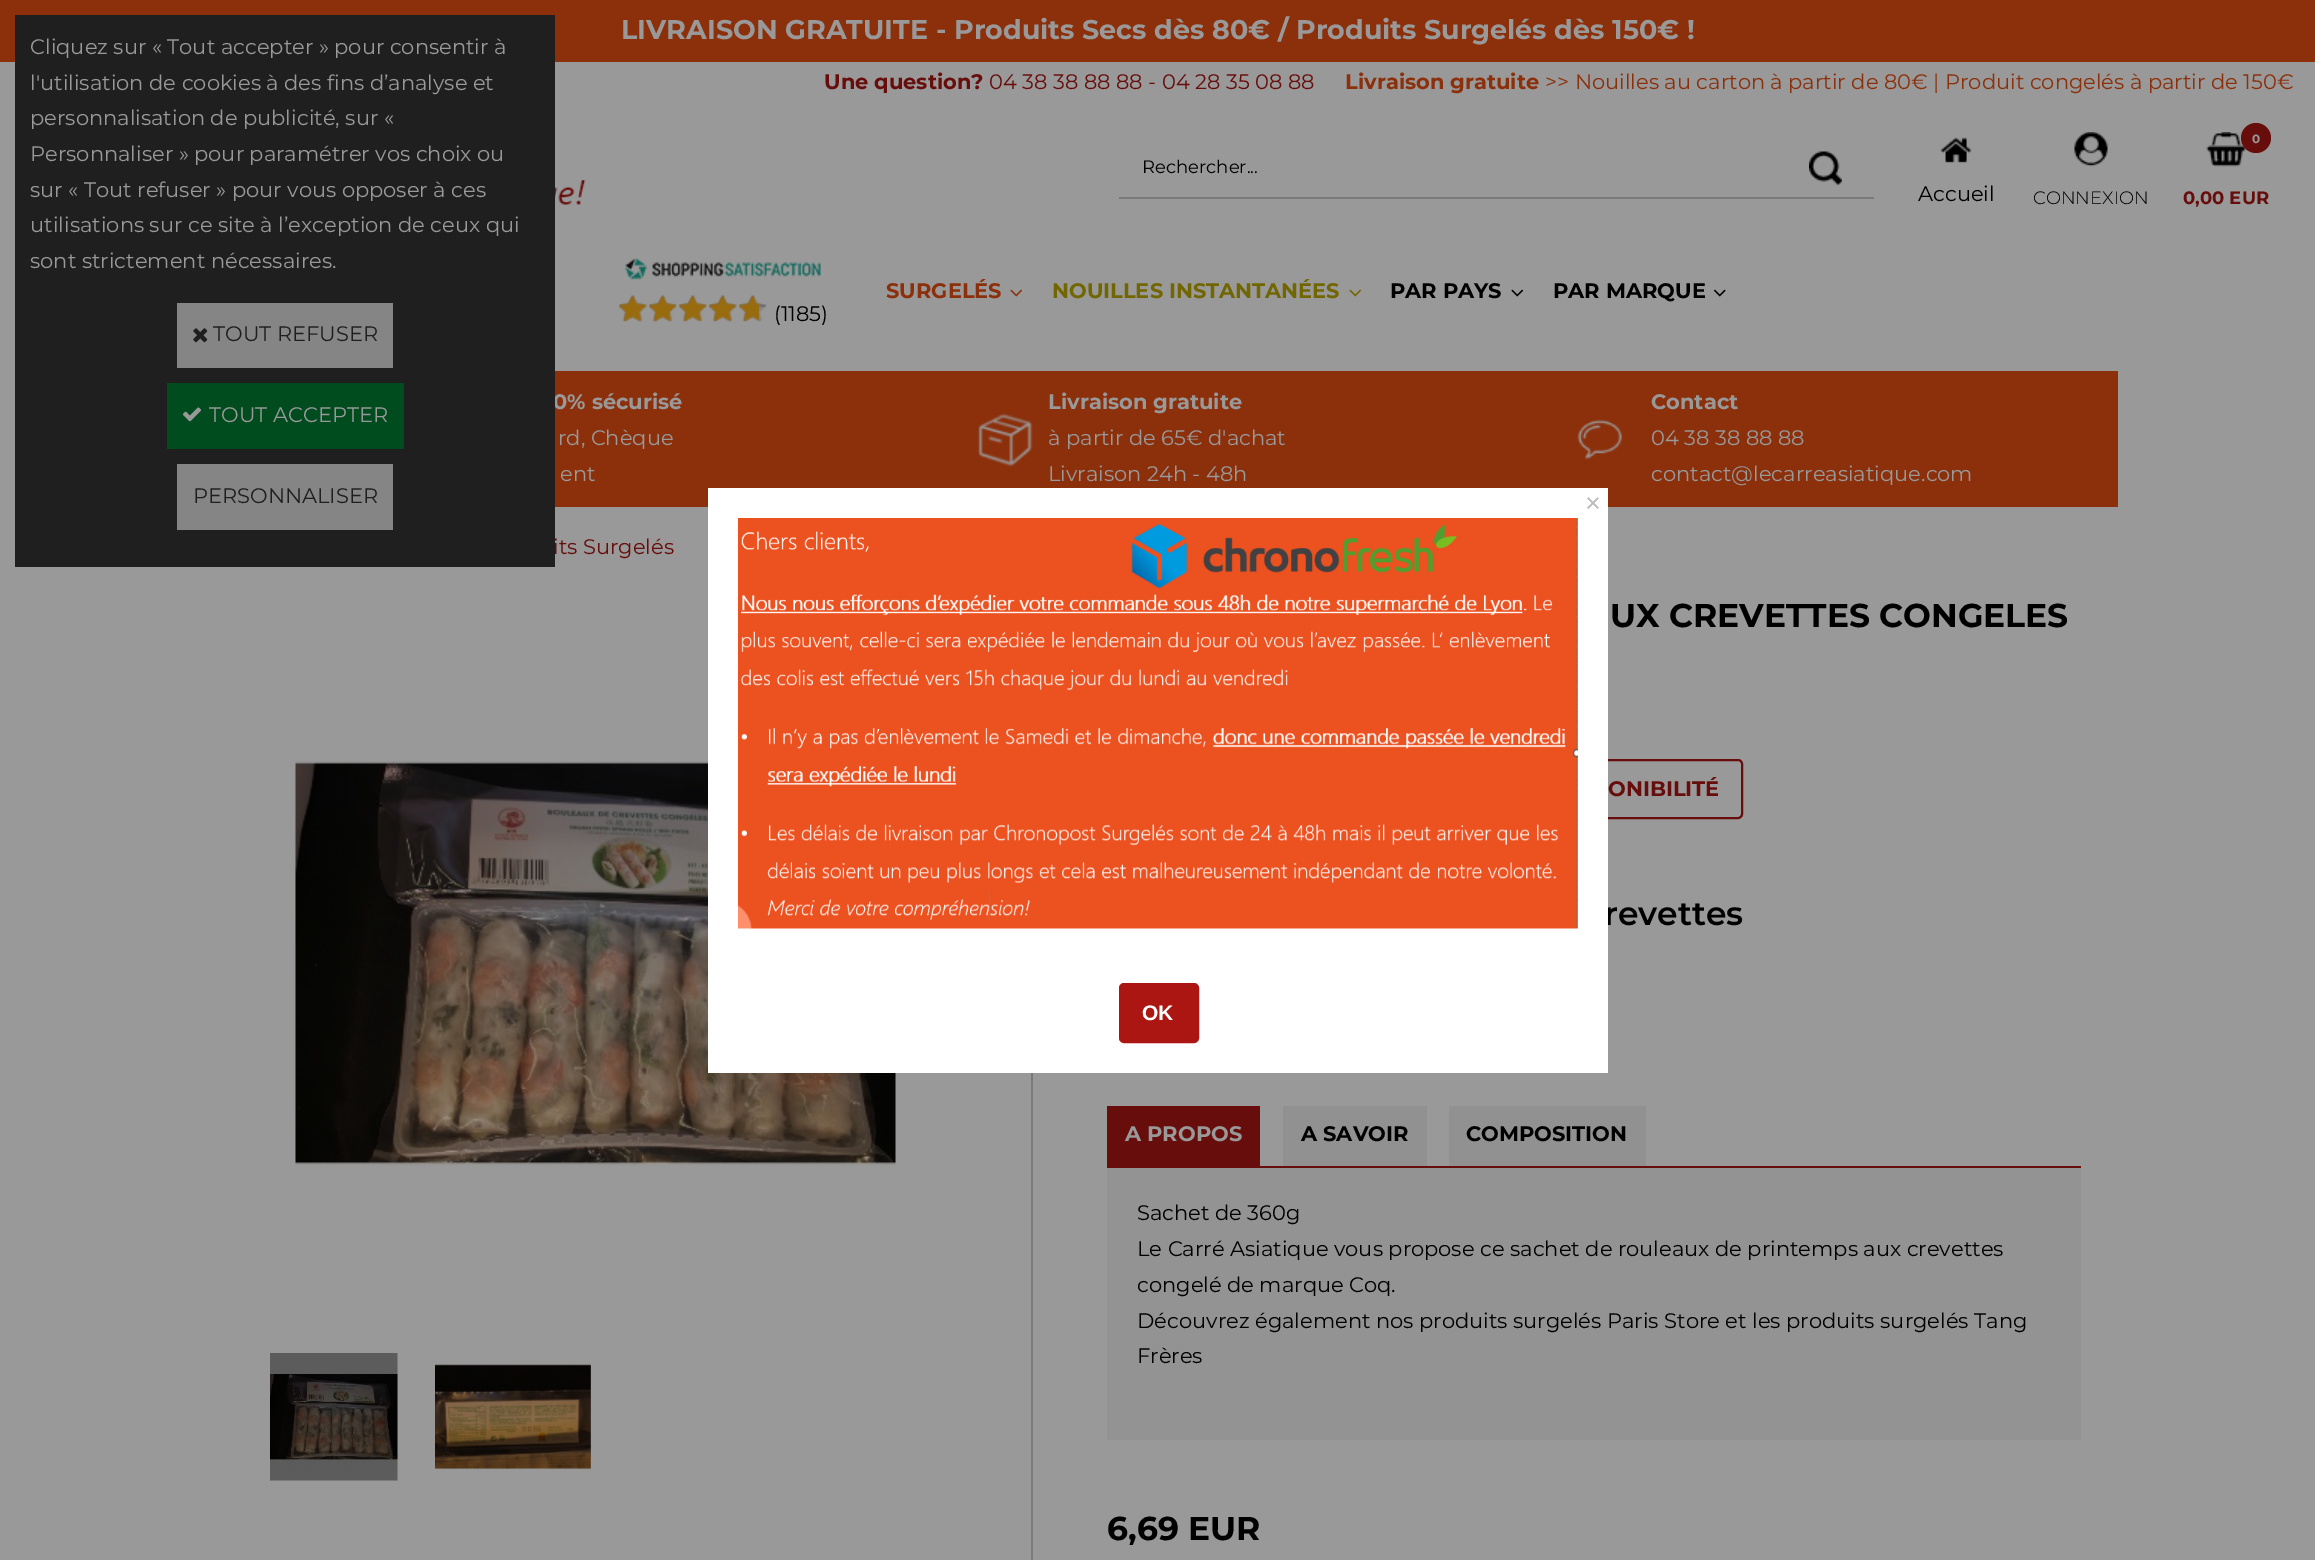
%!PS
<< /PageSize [2315 1560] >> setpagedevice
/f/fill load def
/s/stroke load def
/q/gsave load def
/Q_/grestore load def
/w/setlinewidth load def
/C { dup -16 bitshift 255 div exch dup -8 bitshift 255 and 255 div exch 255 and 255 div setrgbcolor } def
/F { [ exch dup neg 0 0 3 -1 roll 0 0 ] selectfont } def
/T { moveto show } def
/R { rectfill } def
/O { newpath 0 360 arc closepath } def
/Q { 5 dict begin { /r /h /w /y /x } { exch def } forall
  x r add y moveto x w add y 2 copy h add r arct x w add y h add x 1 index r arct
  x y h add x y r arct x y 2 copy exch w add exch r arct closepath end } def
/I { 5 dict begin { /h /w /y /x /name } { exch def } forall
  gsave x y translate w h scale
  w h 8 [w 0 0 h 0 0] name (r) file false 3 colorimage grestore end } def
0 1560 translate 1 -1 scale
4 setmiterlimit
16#999999 C
0 0 2315 1560 R
16#8C300C C
0 0 2315 62 R
/Montserrat-Bold 27 F
16#999999 C
(LIVRAISON GRATUITE - Produits Secs dès 80€ / Produits Surgelés dès 150€ !) 621 39 T
16#8C300C C
555 371 1563 136 R
/Montserrat-Bold 21 F
16#999999 C
(0% sécurisé) 553 409 T
/Montserrat-Regular 21 F
16#670D0B C
(its Surgelés) 553 554 T
16#1F1F1F C
15 15 540 552 R
16#999999 C
(Cliquez sur « Tout accepter » pour consentir à) 30 54 T
(l'utilisation de cookies à des fins d’analyse et) 30 90 T
(personnalisation de publicité, sur «) 30 125 T
(Personnaliser » pour paramétrer vos choix ou) 30 161 T
(sur « Tout refuser » pour vous opposer à ces) 30 197 T
(utilisations sur ce site à l’exception de ceux qui) 30 232 T
(sont strictement nécessaires.) 30 268 T
16#858585 C
177 303 216 65 R
(1.rgb) 193 328 15 15 I
16#1F1F1F C
(TOUT REFUSER) 213 341 T
16#004C1F C
167 383 237 66 R
(2.rgb) 182 407 20 15 I
16#999999 C
(TOUT ACCEPTER) 209 422 T
16#858585 C
177 464 216 66 R
16#1F1F1F C
(PERSONNALISER) 193 503 T
(3.rgb) 555 180 31 25 I
/Montserrat-Bold 21 F
16#670D0B C
(Une question?) 824 89 T
/Montserrat-Regular 21 F
(04 38 38 88 88 - 04 28 35 08 88) 989 89 T
/Montserrat-Bold 21 F
16#8C300C C
(Livraison gratuite) 1345 89 T
/Montserrat-Regular 21 F
(>> Nouilles au carton à partir de 80€ | Produit congelés à partir de 150€) 1545 89 T
16#7A7A7A C
1119 197 755 2 R
/Montserrat-Regular 18 F
16#000000 C
(Rechercher...) 1142 173 T
(4.rgb) 1809 151 33 34 I
(5.rgb) 1940 137 32 26 I
/Montserrat-Regular 21 F
(Accueil) 1918 201 T
(6.rgb) 2074 132 34 35 I
/Montserrat-Light 18 F
(CONNEXION) 2033 204 T
(7.rgb) 2206 132 40 35 I
16#670D0B C
2256 138 15 O f
/Montserrat-Bold 12 F
16#999999 C
(0) 2252 143 T
/Montserrat-Bold 18 F
16#670D0B C
(0,00 EUR) 2183 204 T
/Montserrat-Bold 21 F
16#8C300C C
(SURGELÉS) 886 298 T
(8.rgb) 1010 289 13 8 I
16#716600 C
(NOUILLES INSTANTANÉES) 1052 298 T
(9.rgb) 1349 289 13 8 I
16#000000 C
(PAR PAYS) 1390 298 T
(10.rgb) 1511 289 13 8 I
(PAR MARQUE) 1553 298 T
(11.rgb) 1713 289 13 8 I
(12.rgb) 625 257 196 23 I
(13.rgb) 619 295 148 27 I
(14.rgb) 619 295 140 27 I
/Montserrat-Regular 21 F
(\(1185\)) 774 321 T
16#999999 C
(rd, Chèque) 558 445 T
(ent) 560 481 T
(15.rgb) 978 413 55 54 I
/Montserrat-Bold 21 F
(Livraison gratuite) 1048 409 T
/Montserrat-Regular 21 F
(à partir de 65€ d'achat) 1048 445 T
(Livraison 24h - 48h) 1048 481 T
(16.rgb) 1577 419 45 41 I
/Montserrat-Bold 21 F
(Contact) 1651 409 T
/Montserrat-Regular 21 F
(04 38 38 88 88) 1651 445 T
(contact@lecarreasiatique.com) 1651 481 T
(17.rgb) 295 759 601 408 I
(18.rgb) 270 1353 128 128 I
(19.rgb) 435 1364 156 105 I
16#7A7A7A C
1031 1073 2 487 R
/Montserrat-Bold 33 F
16#000000 C
(UX CREVETTES CONGELES) 1610 627 T
16#670D0B C
2 w
1273 760 469 58 4 Q s
/Montserrat-Bold 21 F
(ONIBILITÉ) 1608 796 T
/Montserrat-SemiBold 33 F
16#000000 C
(revettes) 1604 925 T
16#670D0B C
1107 1106 153 60 R
/Montserrat-Bold 21 F
16#999999 C
(A PROPOS) 1125 1141 T
16#919191 C
1283 1106 144 60 R
16#000000 C
(A SAVOIR) 1301 1141 T
16#919191 C
1449 1106 197 60 R
16#000000 C
(COMPOSITION) 1466 1141 T
16#939393 C
1107 1168 974 272 R
16#670D0B C
1107 1166 974 2 R
/Montserrat-Regular 21 F
16#000000 C
(Sachet de 360g) 1137 1220 T
(Le Carré Asiatique vous propose ce sachet de rouleaux de printemps aux crevettes) 1137 1256 T
(congelé de marque Coq.) 1137 1292 T
(Découvrez également nos produits surgelés Paris Store et les produits surgelés Tang) 1137 1328 T
(Frères) 1137 1363 T
/Montserrat-Bold 33 F
(6,69 EUR) 1107 1540 T
16#FFFFFF C
708 488 900 585 R
/LiberationSans-Regular 27 F
16#BBBBBB C
(×) 1585 512 T
(20.rgb) 738 518 840 411 I
16#AB1612 C
1120 984 78 58 4 Q q f Q_
s
/LiberationSans-Bold 21 F
16#FFFFFF C
(OK) 1142 1020 T
showpage
